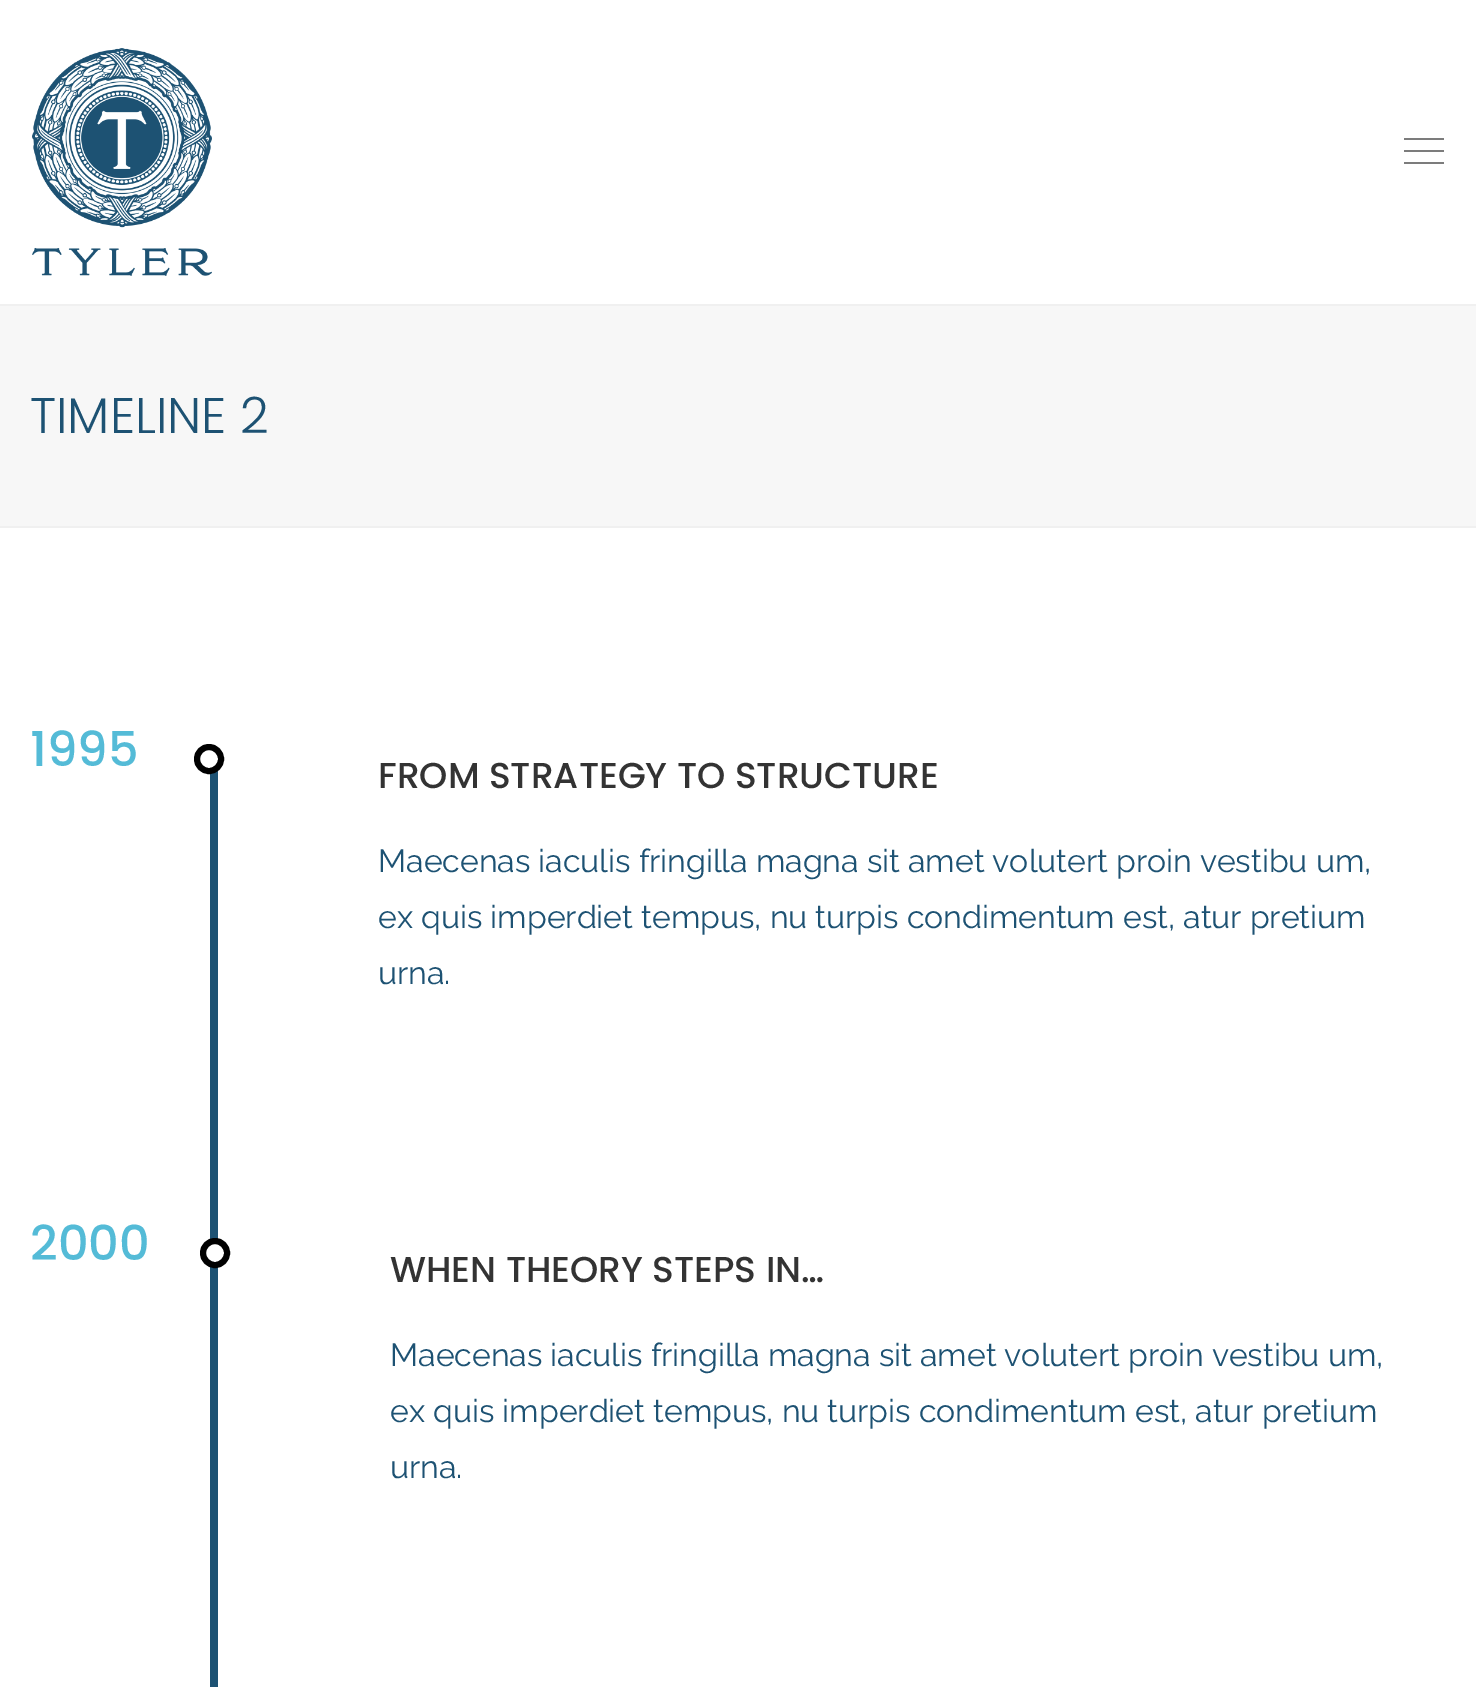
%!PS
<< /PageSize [1476 1687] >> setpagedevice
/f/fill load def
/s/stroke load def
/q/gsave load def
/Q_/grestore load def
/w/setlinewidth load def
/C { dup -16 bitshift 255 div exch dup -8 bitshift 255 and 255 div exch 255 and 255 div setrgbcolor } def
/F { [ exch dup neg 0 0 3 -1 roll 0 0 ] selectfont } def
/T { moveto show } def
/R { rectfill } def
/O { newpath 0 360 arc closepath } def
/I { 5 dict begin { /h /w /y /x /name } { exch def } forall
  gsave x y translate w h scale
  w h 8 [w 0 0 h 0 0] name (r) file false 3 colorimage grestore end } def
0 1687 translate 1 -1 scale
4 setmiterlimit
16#FFFFFF C
0 0 1476 1687 R
(1.rgb) 32 48 180 228 I
16#7C7C7C C
1404 150 40 2 R
1404 138 40 2 R
1404 162 40 2 R
16#F7F7F7 C
0 306 1476 220 R
16#F0F0F0 C
0 304 1476 2 R
0 526 1476 2 R
/Poppins-Light 50 F
16#1D5273 C
(TIMELINE 2) 30 433 T
/Poppins-Medium 48 F
16#54BBD7 C
(1995) 30 766 T
16#1D5273 C
210 771 8 471 R
16#FFFFFF C
209 759 12 O q f Q_
16#000000 C
6 w
s
/Poppins-Medium 36 F
16#333333 C
(FROM STRATEGY TO STRUCTURE) 378 788 T
/Raleway-Regular 32 F
16#1D5273 C
(Maecenas iaculis fringilla magna sit amet volutert proin vestibu um,) 378 872 T
(ex quis imperdiet tempus, nu turpis condimentum est, atur pretium) 378 928 T
(urna.) 378 984 T
/Poppins-Medium 48 F
16#54BBD7 C
(2000) 30 1260 T
16#1D5273 C
210 1267 8 420 R
16#FFFFFF C
215 1253 12 O q f Q_
16#000000 C
s
/Poppins-Medium 36 F
16#333333 C
(WHEN THEORY STEPS IN…) 390 1282 T
/Raleway-Regular 32 F
16#1D5273 C
(Maecenas iaculis fringilla magna sit amet volutert proin vestibu um,) 390 1366 T
(ex quis imperdiet tempus, nu turpis condimentum est, atur pretium) 390 1422 T
(urna.) 390 1478 T
showpage
